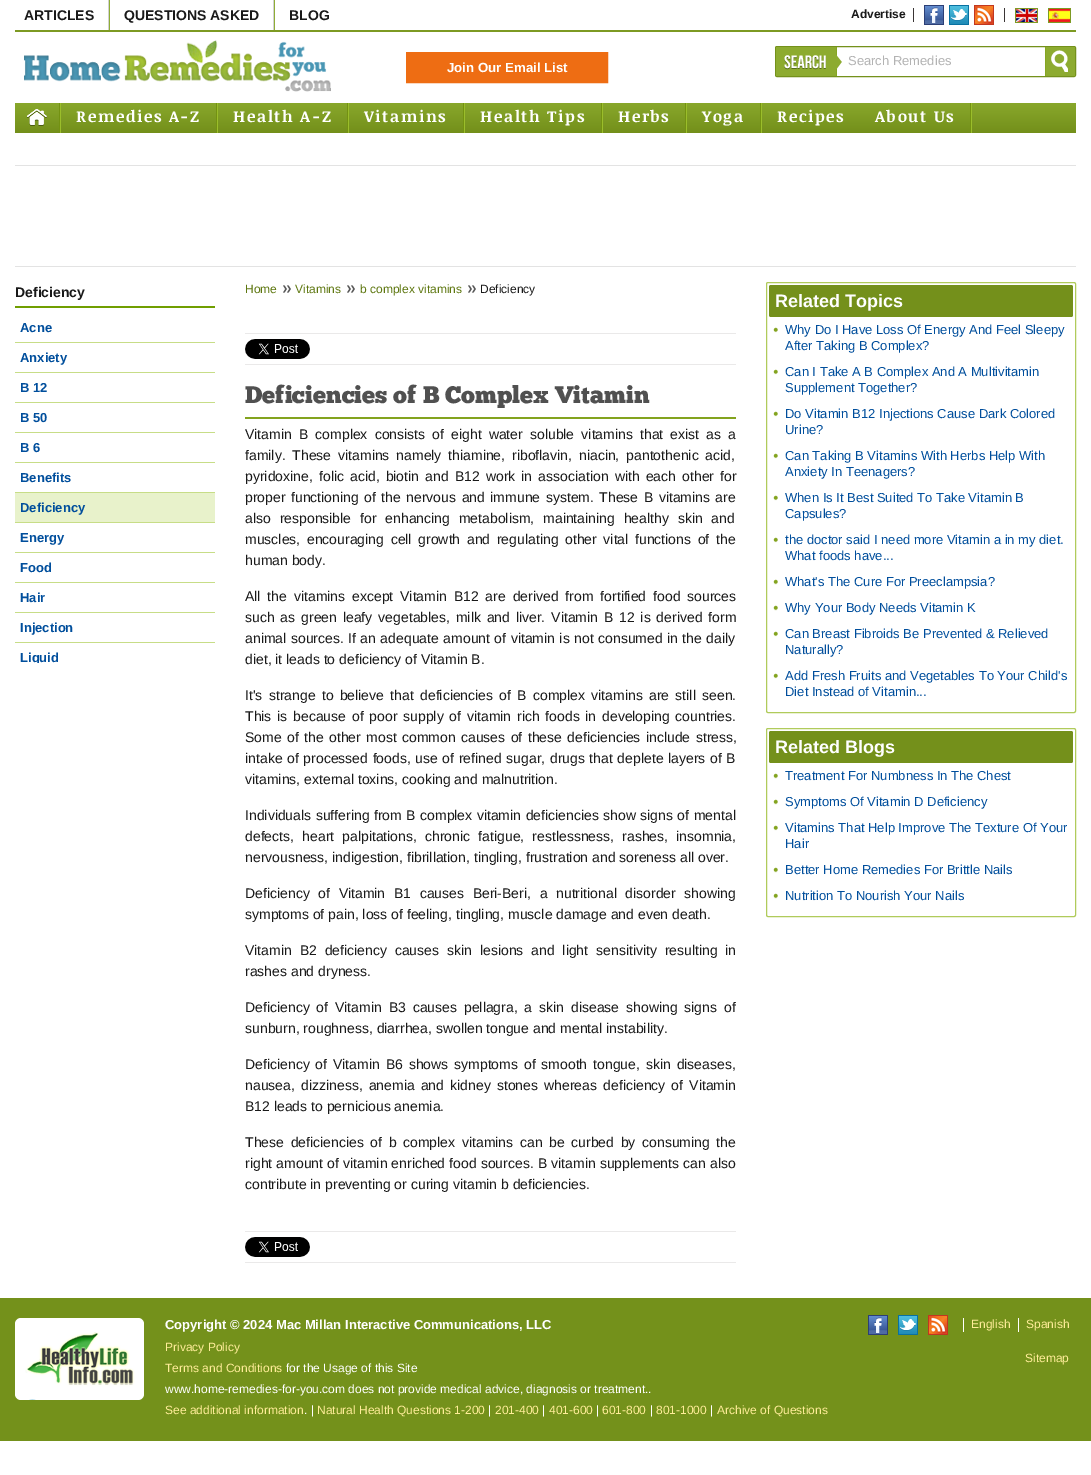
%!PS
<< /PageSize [1091 1475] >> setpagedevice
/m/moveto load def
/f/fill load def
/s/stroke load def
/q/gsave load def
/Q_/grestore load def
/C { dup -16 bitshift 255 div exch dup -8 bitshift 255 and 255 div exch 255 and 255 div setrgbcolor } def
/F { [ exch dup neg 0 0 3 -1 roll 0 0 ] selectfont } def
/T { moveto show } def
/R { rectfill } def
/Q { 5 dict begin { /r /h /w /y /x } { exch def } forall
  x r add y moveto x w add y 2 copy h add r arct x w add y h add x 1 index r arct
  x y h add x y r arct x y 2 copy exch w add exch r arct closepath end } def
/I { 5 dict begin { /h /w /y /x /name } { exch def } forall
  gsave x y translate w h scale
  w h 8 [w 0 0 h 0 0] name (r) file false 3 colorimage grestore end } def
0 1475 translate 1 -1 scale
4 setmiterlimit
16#FFFFFF C
0 0 1091 1475 R
16#7D9A23 C
15 30 1061 2 R
16#8FAD36 C
109 0 1 30 R
16#D1D1D1 C
108 0 1 30 R
/LiberationSans-Bold 14 F
16#191919 C
(ARTICLES) 24 20 T
16#8FAD36 C
274 0 1 30 R
16#D1D1D1 C
273 0 1 30 R
16#191919 C
(QUESTIONS ASKED) 124 20 T
(BLOG) 289 20 T
16#3A3535 C
913 8 1 14 R
/LiberationSans-Bold 12 F
16#191919 C
(Advertise) 851 18 T
16#3A3535 C
1004 8 1 14 R
(1.rgb) 924 5 20 20 I
(2.rgb) 949 5 20 20 I
(3.rgb) 974 5 20 20 I
(4.rgb) 1015 8 23 15 I
(5.rgb) 1048 8 23 15 I
(6.rgb) 24 40 307 52 I
16#74911B C
775.5 46.5 300 30 1.5 Q s
16#8DAB30 C
776 47 60 29 R
(7.rgb) 784 55 42 15 I
16#85A522 C
836 47 1 29 R
(8.rgb) 836 55 6 14 I
/LiberationSans-Regular 13 F
16#B3B3B3 C
(Search Remedies) 848 65 T
16#8DAB30 C
1046 47 29 29 R
(9.rgb) 1051 50 17 22 I
16#85A522 C
1045 47 1 29 R
16#EE6D13 C
406.5 52.5 201 30 rectstroke
407 53 200 29 R
/LiberationSans-Bold 13.25 F
16#FFFFFF C
(Join Our Email List) 447 72 T
q 15 103 1061 30 2 Q clip newpath
<< /ShadingType 2 /ColorSpace /DeviceRGB /Coords [546 103 546 133] /Extend [true true] /Function << /FunctionType 2 /Domain [0 1] /C0 [.537 .659 .173] /C1 [.451 .561 .102] /N 1 >> >> shfill Q_
(10.rgb) 27 109 20 17 I
16#9BBE2B C
60 103 1 30 R
16#739211 C
59 103 1 30 R
16#9BBE2B C
217 103 1 30 R
16#739211 C
216 103 1 30 R
/NoticiaText-Bold 16 F
16#FFFFFF C
76 122 m 1.6 0 (Remedies A-Z) ashow
16#9BBE2B C
348 103 1 30 R
16#739211 C
347 103 1 30 R
16#FFFFFF C
233 122 m 1.6 0 (Health A-Z) ashow
16#9BBE2B C
464 103 1 30 R
16#739211 C
463 103 1 30 R
16#FFFFFF C
364 122 m 1.6 0 (Vitamins) ashow
16#9BBE2B C
602 103 1 30 R
16#739211 C
601 103 1 30 R
16#FFFFFF C
480 122 m 1.6 0 (Health Tips) ashow
16#9BBE2B C
686 103 1 30 R
16#739211 C
685 103 1 30 R
16#FFFFFF C
618 122 m 1.6 0 (Herbs) ashow
16#9BBE2B C
761 103 1 30 R
16#739211 C
760 103 1 30 R
16#FFFFFF C
702 122 m 1.6 0 (Yoga) ashow
777 122 m 1.6 0 (Recipes) ashow
16#9BBE2B C
971 103 1 30 R
16#739211 C
970 103 1 30 R
16#FFFFFF C
875 122 m 1.6 0 (About Us) ashow
16#E3E3E3 C
15 165 1061 1 R
15 266 1061 1 R
16#709E00 C
15 306 200 2 R
/LiberationSans-Bold 14 F
16#191919 C
(Deficiency) 15 297 T
16#C7DD87 C
15 342 200 1 R
/LiberationSans-Bold 13 F
16#004E9C C
(Acne) 20 332 T
16#C7DD87 C
15 372 200 1 R
16#004E9C C
(Anxiety) 20 362 T
16#C7DD87 C
15 402 200 1 R
16#004E9C C
(B 12) 20 392 T
16#C7DD87 C
15 432 200 1 R
16#004E9C C
(B 50) 20 422 T
16#C7DD87 C
15 462 200 1 R
16#004E9C C
(B 6) 20 452 T
16#C7DD87 C
15 492 200 1 R
16#004E9C C
(Benefits) 20 482 T
16#E8F2CB C
15 493 200 29 R
16#C7DD87 C
15 522 200 1 R
16#004E9C C
(Deficiency) 20 512 T
16#C7DD87 C
15 552 200 1 R
16#004E9C C
(Energy) 20 542 T
16#C7DD87 C
15 582 200 1 R
16#004E9C C
(Food) 20 572 T
16#C7DD87 C
15 612 200 1 R
16#004E9C C
(Hair) 20 602 T
16#C7DD87 C
15 642 200 1 R
16#004E9C C
(Injection) 20 632 T
q
15 313 200 350 rectclip
(Liquid) 20 662 T
Q_
/LiberationSans-Regular 12 F
16#5E7710 C
(Home) 245 293 T
(11.rgb) 283 285 8 8 I
(Vitamins) 295 293 T
(11.rgb) 347 285 8 8 I
(b complex vitamins) 360 293 T
(11.rgb) 468 285 8 8 I
16#191919 C
(Deficiency) 480 293 T
16#EAE9E9 C
245 333 491 1 R
245 364 491 1 R
(12.rgb) 245 339 65 20 I
16#83A31E C
245 417 491 2 R
/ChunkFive-Regular 24 F
16#505050 C
(Deficiencies of B Complex Vitamin) 245 403 T
/LiberationSans-Regular 14 F
16#191919 C
245 439 m 3.25 0 32 (Vitamin B complex consists of eight water soluble vitamins that exist as a) widthshow
245 460 m 3 0 32 (family. These vitamins namely thiamine, riboflavin, niacin, pantothenic acid,) widthshow
245 481 m 2.25 0 32 (pyridoxine, folic acid, biotin and B12 work in association with each other for) widthshow
245 502 m 1.6 0 32 (proper functioning of the nervous and immune system. These B vitamins are) widthshow
245 523 m 5 0 32 (also responsible for enhancing metabolism, maintaining healthy skin and) widthshow
245 544 m 2.75 0 32 (muscles, encouraging cell growth and regulating other vital functions of the) widthshow
(human body.) 245 565 T
245 601 m 3 0 32 (All the vitamins except Vitamin B12 are derived from fortified food sources) widthshow
245 622 m 2 0 32 (such as green leafy vegetables, milk and liver. Vitamin B 12 is derived form) widthshow
245 643 m .6 0 32 (animal sources. If an adequate amount of vitamin is not consumed in the daily) widthshow
(diet, it leads to deficiency of Vitamin B.) 245 664 T
245 700 m 2.4 0 32 (It's strange to believe that deficiencies of B complex vitamins are still seen.) widthshow
245 721 m 1.9 0 32 (This is because of poor supply of vitamin rich foods in developing countries.) widthshow
245 742 m 1.5 0 32 (Some of the other most common causes of these deficiencies include stress,) widthshow
245 763 m .75 0 32 (intake of processed foods, use of refined sugar, drugs that deplete layers of B) widthshow
(vitamins, external toxins, cooking and malnutrition.) 245 784 T
245 820 m .6 0 32 (Individuals suffering from B complex vitamin deficiencies show signs of mental) widthshow
245 841 m 4.25 0 32 (defects, heart palpitations, chronic fatigue, restlessness, rashes, insomnia,) widthshow
(nervousness, indigestion, fibrillation, tingling, frustration and soreness all over.) 245 862 T
245 898 m 4.75 0 32 (Deficiency of Vitamin B1 causes Beri-Beri, a nutritional disorder showing) widthshow
(symptoms of pain, loss of feeling, tingling, muscle damage and even death.) 245 919 T
245 955 m 4 0 32 (Vitamin B2 deficiency causes skin lesions and light sensitivity resulting in) widthshow
(rashes and dryness.) 245 976 T
245 1012 m 3 0 32 (Deficiency of Vitamin B3 causes pellagra, a skin disease showing signs of) widthshow
(sunburn, roughness, diarrhea, swollen tongue and mental instability.) 245 1033 T
245 1069 m 2 0 32 (Deficiency of Vitamin B6 shows symptoms of smooth tongue, skin diseases,) widthshow
245 1090 m 2.25 0 32 (nausea, dizziness, anemia and kidney stones whereas deficiency of Vitamin) widthshow
(B12 leads to pernicious anemia.) 245 1111 T
245 1147 m 2.75 0 32 (These deficiencies of b complex vitamins can be curbed by consuming the) widthshow
245 1168 m .25 0 32 (right amount of vitamin enriched food sources. B vitamin supplements can also) widthshow
(contribute in preventing or curing vitamin b deficiencies.) 245 1189 T
16#EAE9E9 C
245 1231 491 1 R
245 1262 491 1 R
(12.rgb) 245 1237 65 20 I
16#B0CB5B C
766.5 282.5 309 430 1.5 Q s
16#74901B C
769 285 304 32 2 Q f
/LiberationSans-Bold 18 F
16#FFFFFF C
(Related Topics) 775 307 T
(13.rgb) 773 327 5 6 I
/LiberationSans-Regular 13 F
16#004E9C C
(Why Do I Have Loss Of Energy And Feel Sleepy) 785 334 T
(After Taking B Complex?) 785 350 T
(13.rgb) 773 369 5 6 I
(Can I Take A B Complex And A Multivitamin) 785 376 T
(Supplement Together?) 785 392 T
(13.rgb) 773 411 5 6 I
(Do Vitamin B12 Injections Cause Dark Colored) 785 418 T
(Urine?) 785 434 T
(13.rgb) 773 453 5 6 I
(Can Taking B Vitamins With Herbs Help With) 785 460 T
(Anxiety In Teenagers?) 785 476 T
(13.rgb) 773 495 5 6 I
(When Is It Best Suited To Take Vitamin B) 785 502 T
(Capsules?) 785 518 T
(13.rgb) 773 537 5 6 I
(the doctor said I need more Vitamin a in my diet.) 785 544 T
(What foods have...) 785 560 T
(14.rgb) 773 579 5 6 I
(What's The Cure For Preeclampsia?) 785 586 T
(14.rgb) 773 605 5 6 I
(Why Your Body Needs Vitamin K) 785 612 T
(13.rgb) 773 631 5 6 I
(Can Breast Fibroids Be Prevented & Relieved) 785 638 T
(Naturally?) 785 654 T
(13.rgb) 773 673 5 6 I
(Add Fresh Fruits and Vegetables To Your Child's) 785 680 T
(Diet Instead of Vitamin...) 785 696 T
16#B0CB5B C
766.5 728.5 309 188 1.5 Q s
16#74901B C
769 731 304 32 2 Q f
/LiberationSans-Bold 18 F
16#FFFFFF C
(Related Blogs) 775 753 T
(14.rgb) 773 773 5 6 I
/LiberationSans-Regular 13 F
16#004E9C C
(Treatment For Numbness In The Chest) 785 780 T
(14.rgb) 773 799 5 6 I
(Symptoms Of Vitamin D Deficiency) 785 806 T
(13.rgb) 773 825 5 6 I
(Vitamins That Help Improve The Texture Of Your) 785 832 T
(Hair) 785 848 T
(14.rgb) 773 867 5 6 I
(Better Home Remedies For Brittle Nails) 785 874 T
(14.rgb) 773 893 5 6 I
(Nutrition To Nourish Your Nails) 785 900 T
16#74911B C
0 1298 1091 143 R
16#FFFFFF C
15 1318 129 82 6 Q f
(15.rgb) 25 1332 110 68 I
/LiberationSans-Bold 13 F
(Copyright © 2024 Mac Millan Interactive Communications, LLC) 165 1329 T
963 1318 1 14 R
(1.rgb) 868 1315 20 20 I
(2.rgb) 898 1315 20 20 I
(3.rgb) 928 1315 20 20 I
1018 1318 1 14 R
/LiberationSans-Regular 12 F
16#FFED99 C
(English) 971 1328 T
(Spanish) 1026 1328 T
(Privacy Policy) 165 1351 T
(Sitemap) 1025 1362 T
(Terms and Conditions) 165 1372 T
16#FFFFFF C
(for the Usage of this Site) 286 1372 T
(www.home-remedies-for-you.com does not provide medical advice, diagnosis or treatment..) 165 1393 T
16#FFED99 C
(See additional information) 165 1414 T
16#FFFFFF C
(. |) 304 1414 T
16#FFED99 C
(Natural Health Questions 1-200) 317 1414 T
16#FFFFFF C
(|) 488 1414 T
16#FFED99 C
(201-400) 495 1414 T
16#FFFFFF C
(|) 542 1414 T
16#FFED99 C
(401-600) 549 1414 T
16#FFFFFF C
(|) 596 1414 T
16#FFED99 C
(601-800) 602 1414 T
16#FFFFFF C
(|) 650 1414 T
16#FFED99 C
(801-1000) 656 1414 T
16#FFFFFF C
(|) 710 1414 T
16#FFED99 C
(Archive of Questions) 717 1414 T
showpage
